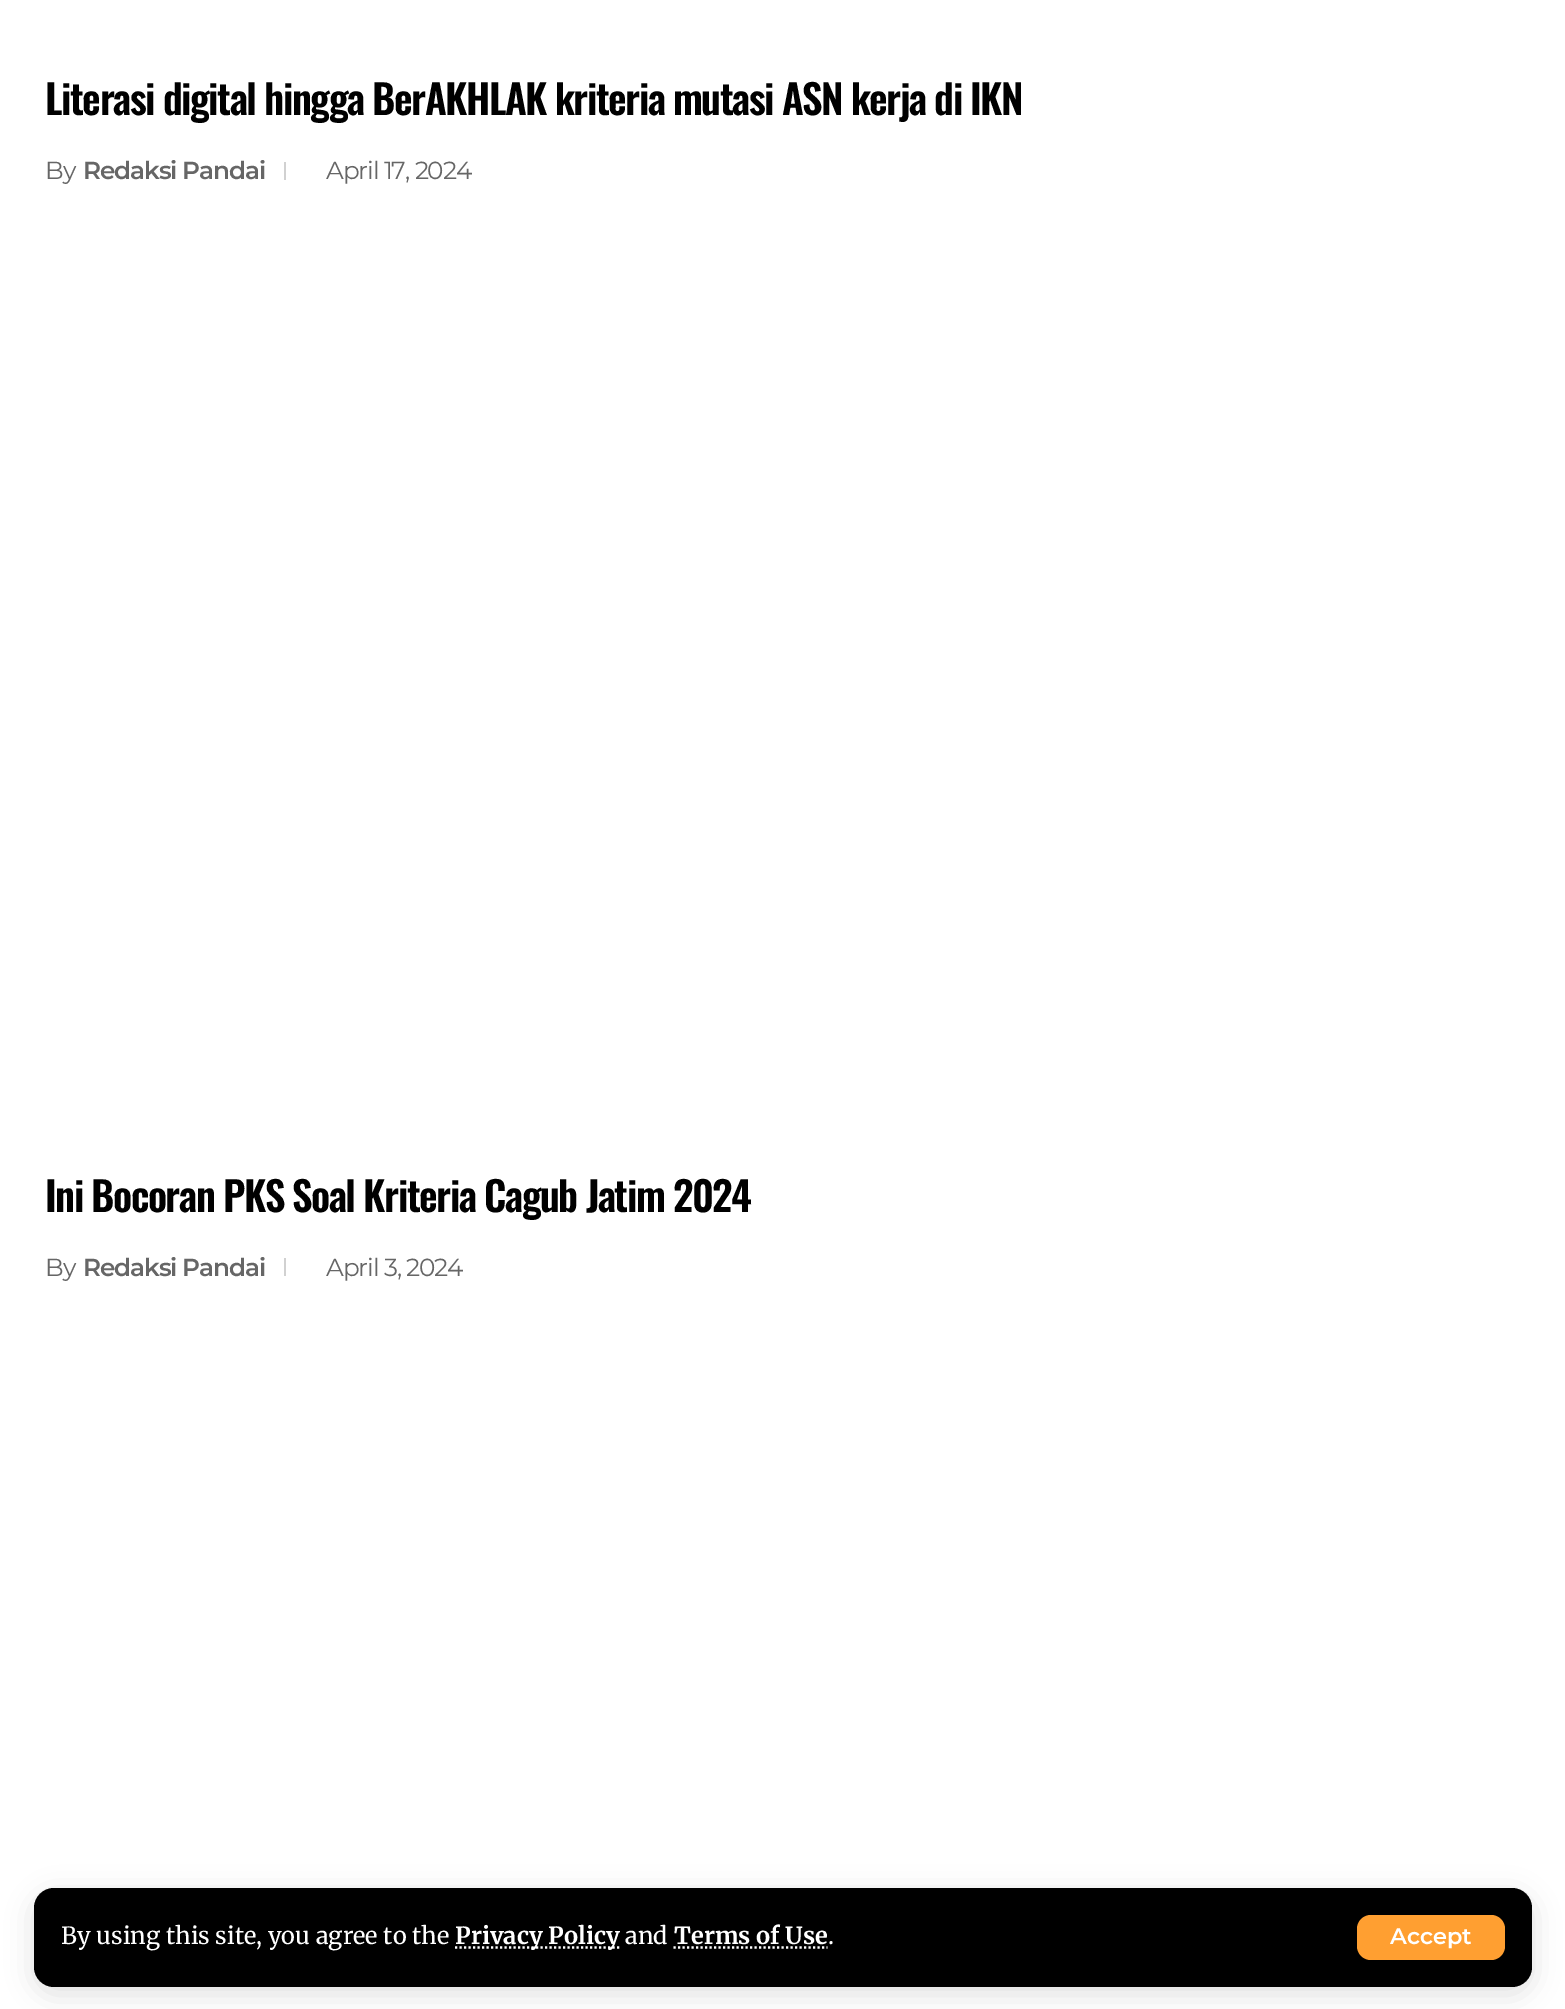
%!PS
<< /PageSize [1565 2009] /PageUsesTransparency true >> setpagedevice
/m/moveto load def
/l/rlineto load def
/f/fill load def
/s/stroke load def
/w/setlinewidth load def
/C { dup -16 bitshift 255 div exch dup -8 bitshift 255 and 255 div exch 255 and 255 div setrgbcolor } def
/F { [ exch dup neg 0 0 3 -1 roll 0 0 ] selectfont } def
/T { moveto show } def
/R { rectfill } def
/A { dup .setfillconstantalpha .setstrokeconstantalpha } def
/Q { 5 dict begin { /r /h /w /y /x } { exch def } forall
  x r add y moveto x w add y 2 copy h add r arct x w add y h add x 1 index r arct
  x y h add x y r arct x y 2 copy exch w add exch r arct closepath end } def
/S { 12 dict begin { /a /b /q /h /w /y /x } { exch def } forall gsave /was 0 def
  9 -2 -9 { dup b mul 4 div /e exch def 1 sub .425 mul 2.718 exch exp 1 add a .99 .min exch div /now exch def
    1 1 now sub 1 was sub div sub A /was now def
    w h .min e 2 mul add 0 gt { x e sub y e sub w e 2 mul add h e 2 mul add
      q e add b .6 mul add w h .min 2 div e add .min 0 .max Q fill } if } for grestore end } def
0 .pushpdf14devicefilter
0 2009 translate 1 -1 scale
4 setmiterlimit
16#FFFFFF C
0 0 1565 2009 R
/Oswald-SemiBold 40.5 F
16#000000 C
45 115 m -1.47 0 (Literasi digital hingga BerAKHLAK kriteria mutasi ASN kerja di IKN) ashow
/Montserrat-Regular 24.75 F
16#666666 C
45 179 m -1.1 0 (By) ashow
/Montserrat-SemiBold 24.75 F
83 179 m -1.1 0 (Redaksi Pandai) ashow
16#D1D1D1 C
284 162 2 18 R
/Montserrat-Regular 24.75 F
16#666666 C
326 179 m -1.1 0 (April 17, 2024) ashow
/Oswald-SemiBold 40.5 F
16#000000 C
45 1212 m -1.47 0 (Ini Bocoran PKS Soal Kriteria Cagub Jatim 2024) ashow
/Montserrat-Regular 24.75 F
16#666666 C
45 1276 m -1.1 0 (By) ashow
/Montserrat-SemiBold 24.75 F
83 1276 m -1.1 0 (Redaksi Pandai) ashow
16#D1D1D1 C
284 1258 2 18 R
/Montserrat-Regular 24.75 F
16#666666 C
326 1276 m -1.1 0 (April 3, 2024) ashow
16#000000 C
34 1895 1498 99 20 13.5 .12 S
34 1888 1498 99 20 Q f
/Merriweather-Regular 23.6 F
16#FFFFFF C
(By using this site, you agree to the) 61 1944 T
2.2 w
[2.25 2.25] 0 setdash
455 1947.5 m 165 0 l s
/Merriweather-Bold 23.6 F
(Privacy Policy) 455 1944 T
/Merriweather-Regular 23.6 F
(and) 625 1944 T
/Merriweather-Bold 23.6 F
(Terms of Use) 674 1944 T
673.5 1947.5 m 154 0 l s
/Merriweather-Regular 23.6 F
(.) 828 1944 T
16#FF9F31 C
1357 1915 148 45 14 Q f
/Montserrat-SemiBold 22.5 F
16#FFFFFF C
(Accept) 1390 1944 T
.poppdf14devicefilter showpage
